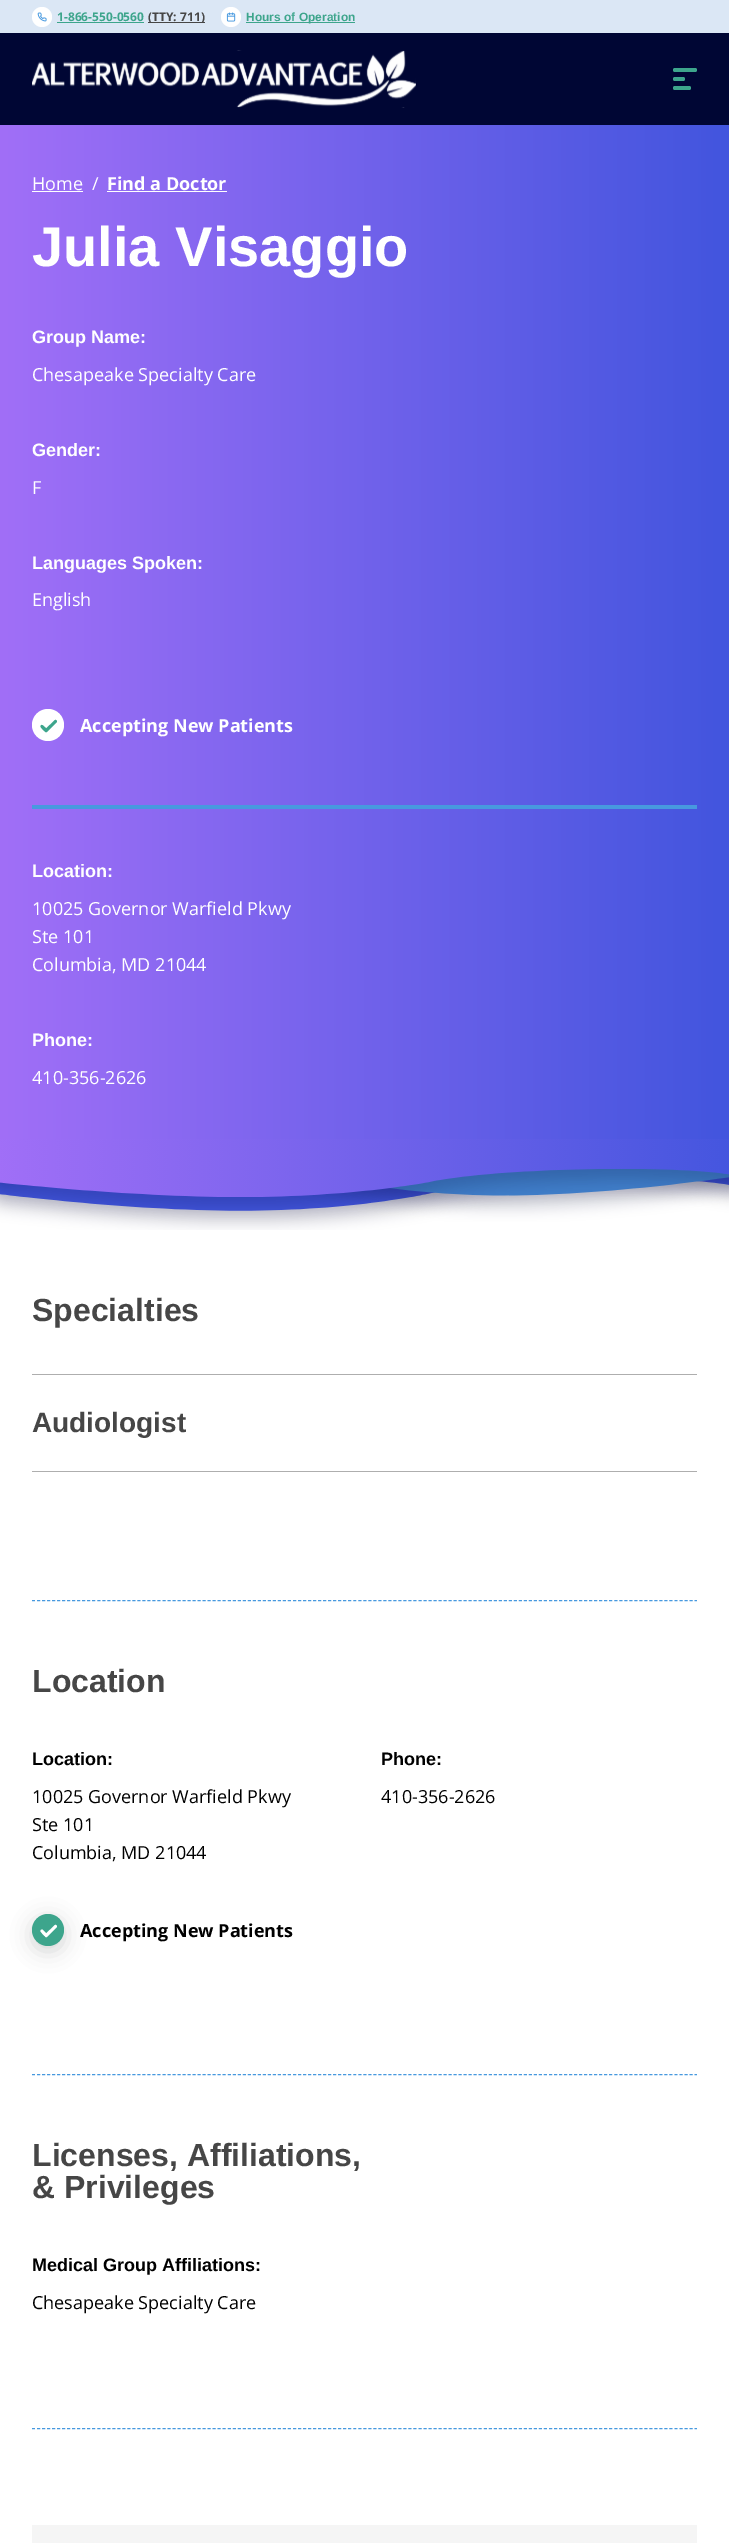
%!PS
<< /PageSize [729 2543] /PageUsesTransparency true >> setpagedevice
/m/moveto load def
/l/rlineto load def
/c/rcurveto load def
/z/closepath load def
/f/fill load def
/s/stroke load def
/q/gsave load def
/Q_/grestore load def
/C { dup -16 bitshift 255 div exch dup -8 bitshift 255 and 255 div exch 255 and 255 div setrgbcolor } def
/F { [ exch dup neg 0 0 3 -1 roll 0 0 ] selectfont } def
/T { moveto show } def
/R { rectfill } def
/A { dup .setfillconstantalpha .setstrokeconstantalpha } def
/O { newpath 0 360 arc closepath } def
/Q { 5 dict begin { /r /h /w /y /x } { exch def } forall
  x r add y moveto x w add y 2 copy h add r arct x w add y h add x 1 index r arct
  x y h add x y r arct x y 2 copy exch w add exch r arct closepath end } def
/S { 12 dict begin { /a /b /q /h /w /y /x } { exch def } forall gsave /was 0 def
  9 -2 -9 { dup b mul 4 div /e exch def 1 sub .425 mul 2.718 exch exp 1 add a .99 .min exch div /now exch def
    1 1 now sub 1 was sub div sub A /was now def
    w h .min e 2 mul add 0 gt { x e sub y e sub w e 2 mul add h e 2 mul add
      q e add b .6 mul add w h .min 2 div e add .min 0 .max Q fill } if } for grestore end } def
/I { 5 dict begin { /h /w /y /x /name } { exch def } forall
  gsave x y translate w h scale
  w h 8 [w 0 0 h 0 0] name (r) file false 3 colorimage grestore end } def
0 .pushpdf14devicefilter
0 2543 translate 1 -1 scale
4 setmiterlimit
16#FFFFFF C
0 0 729 2543 R
16#DBE7F5 C
0 0 729 33 R
16#FFFFFF C
42 17 10 O f
(1.rgb) 37 12 10 10 I
/OpenSans-Bold 12 F
16#3DA58C C
(1-866-550-0560) 57 21 T
57 22 87 1 R
16#464646 C
148 22 57 1 R
(\(TTY: 711\)) 148 21 T
16#FFFFFF C
231 17 10 O f
(2.rgb) 226 12 10 10 I
16#3DA58C C
246 22 109 1 R
/LiberationSans-Bold 12 F
(Hours of Operation) 246 21 T
16#000634 C
0 33 729 92 R
(3.rgb) 32 50 384 58 I
16#3DA58C C
673 68 24 4 2 Q f
673 77 12 4 2 Q f
673 86 18 4 2 Q f
q 0 125 m 729 0 l 0 1014 l -729 0 l z clip newpath
<< /ShadingType 2 /ColorSpace /DeviceRGB /Coords [0 615 729 615] /Extend [true true] /Function << /FunctionType 2 /Domain [0 1] /C0 [.631 .435 .969] /C1 [.259 .333 .871] /N 1 >> >> shfill Q_
/OpenSans-Regular 18 F
16#FFFFFF C
(Home) 32 190 T
32 191 51 1 R
(/) 92 190 T
/OpenSans-Bold 18 F
(Find a Doctor) 107 190 T
107 191 120 1 R
/LiberationSans-Bold 56 F
(Julia Visaggio) 32 266 T
/LiberationSans-Bold 18 F
(Group Name:) 32 343 T
/OpenSans-Regular 18 F
(Chesapeake Specialty Care) 32 381 T
/LiberationSans-Bold 18 F
(Gender:) 32 456 T
/OpenSans-Regular 18 F
(F) 32 494 T
/LiberationSans-Bold 18 F
(Languages Spoken:) 32 569 T
/OpenSans-Regular 18 F
(English) 32 606 T
48 725 16 O f
16#3DA58C C
43 725.5 m 4 3.5 l 0 .5 0 1.5 0 2 c -2 2 -5 -2.5 -6 -3.5 c -1.5 -1.5 .5 -3.5 2 -2 c z f
45 729.5 m 10 -9.5 l 1.5 -.5 2.5 1.5 1.5 2.5 c -9.5 9.5 l -1.5 1 -3 -1 -2 -2.5 c z f
/OpenSans-Bold 18 F
16#FFFFFF C
(Accepting New Patients) 80 732 T
16#4799DF C
32 805 665 4 R
/LiberationSans-Bold 18 F
16#FFFFFF C
(Location:) 32 877 T
/OpenSans-Regular 18 F
(10025 Governor Warfield Pkwy) 32 915 T
(Ste 101) 32 943 T
(Columbia, MD 21044) 32 971 T
/LiberationSans-Bold 18 F
(Phone:) 32 1046 T
/OpenSans-Regular 18 F
(410-356-2626) 32 1084 T
(4.rgb) 0 1139 729 91 I
16#4799DF C
[3 2.02] 0 setdash
32 1600.5 m 665 0 l s
/LiberationSans-Bold 32 F
16#464646 C
(Specialties) 32 1321 T
16#AEAEAE C
32 1374 665 1 R
32 1471 665 1 R
/LiberationSans-Bold 28 F
16#464646 C
(Audiologist) 32 1432 T
16#4799DF C
32 2074.5 m 665 0 l s
/LiberationSans-Bold 32 F
16#464646 C
(Location) 32 1692 T
/LiberationSans-Bold 18 F
16#000000 C
(Location:) 32 1765 T
/OpenSans-Regular 18 F
(10025 Governor Warfield Pkwy) 32 1803 T
(Ste 101) 32 1831 T
(Columbia, MD 21044) 32 1859 T
/LiberationSans-Bold 18 F
(Phone:) 381 1765 T
/OpenSans-Regular 18 F
(410-356-2626) 381 1803 T
16#293237 C
32 1919 32 32 16 10 .2 S
16#3DA58C C
48 1930 16 O f
16#FFFFFF C
43 1930 m 4 4 l 0 .5 0 1 0 1.5 c -2 2.5 -5 -2.5 -6 -3.5 c -1.5 -1 .5 -3.5 2 -2 c z f
45 1934.5 m 10 -9.5 l 1.5 -.5 2.5 1.5 1.5 2.5 c -9.5 9.5 l -1.5 1 -3 -1.5 -2 -2.5 c z f
/OpenSans-Bold 18 F
16#000000 C
(Accepting New Patients) 80 1937 T
16#4799DF C
32 2428.5 m 665 0 l s
/LiberationSans-Bold 32 F
16#464646 C
(Licenses, Affiliations,) 32 2166 T
(& Privileges) 32 2198 T
/LiberationSans-Bold 18 F
16#000000 C
(Medical Group Affiliations:) 32 2271 T
/OpenSans-Regular 18 F
(Chesapeake Specialty Care) 32 2309 T
16#F5F5F5 C
32 2525 665 18 R
.poppdf14devicefilter showpage
